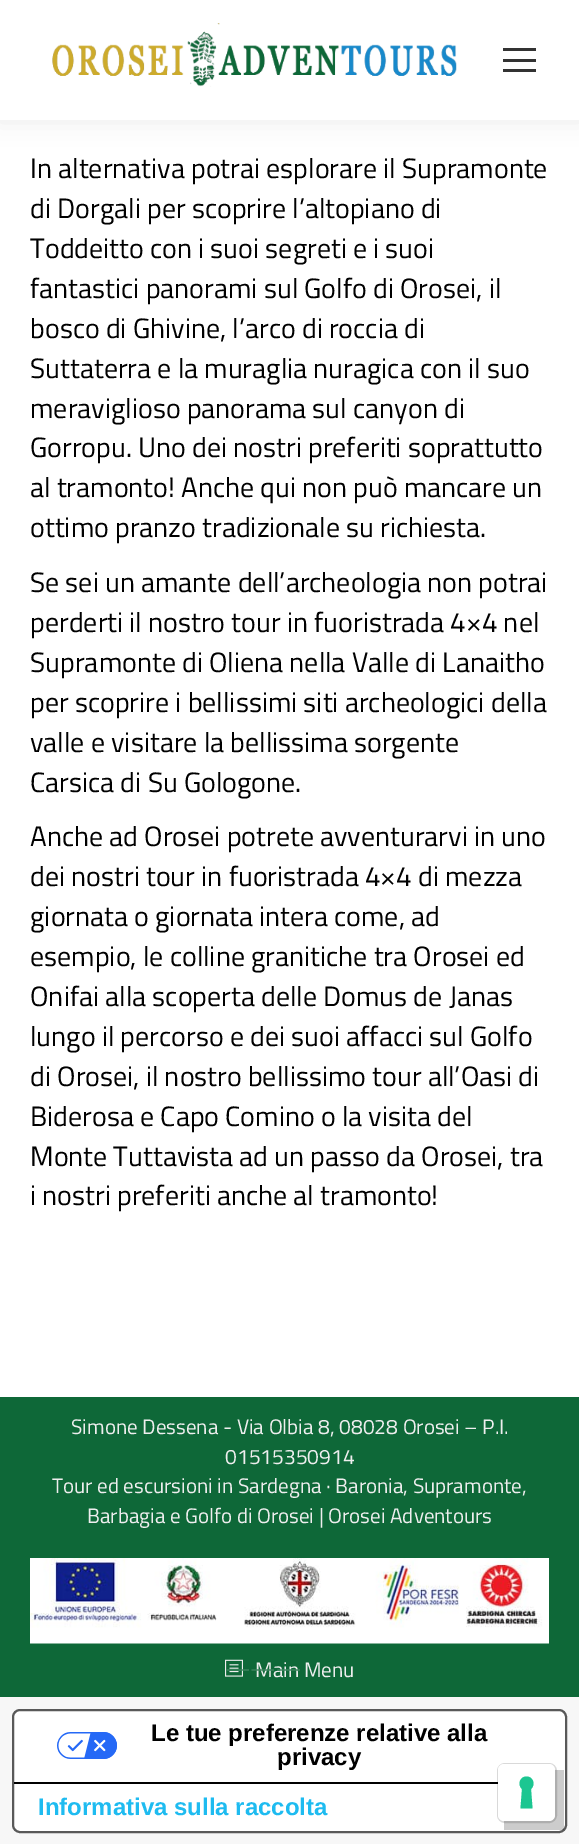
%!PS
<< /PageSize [579 1844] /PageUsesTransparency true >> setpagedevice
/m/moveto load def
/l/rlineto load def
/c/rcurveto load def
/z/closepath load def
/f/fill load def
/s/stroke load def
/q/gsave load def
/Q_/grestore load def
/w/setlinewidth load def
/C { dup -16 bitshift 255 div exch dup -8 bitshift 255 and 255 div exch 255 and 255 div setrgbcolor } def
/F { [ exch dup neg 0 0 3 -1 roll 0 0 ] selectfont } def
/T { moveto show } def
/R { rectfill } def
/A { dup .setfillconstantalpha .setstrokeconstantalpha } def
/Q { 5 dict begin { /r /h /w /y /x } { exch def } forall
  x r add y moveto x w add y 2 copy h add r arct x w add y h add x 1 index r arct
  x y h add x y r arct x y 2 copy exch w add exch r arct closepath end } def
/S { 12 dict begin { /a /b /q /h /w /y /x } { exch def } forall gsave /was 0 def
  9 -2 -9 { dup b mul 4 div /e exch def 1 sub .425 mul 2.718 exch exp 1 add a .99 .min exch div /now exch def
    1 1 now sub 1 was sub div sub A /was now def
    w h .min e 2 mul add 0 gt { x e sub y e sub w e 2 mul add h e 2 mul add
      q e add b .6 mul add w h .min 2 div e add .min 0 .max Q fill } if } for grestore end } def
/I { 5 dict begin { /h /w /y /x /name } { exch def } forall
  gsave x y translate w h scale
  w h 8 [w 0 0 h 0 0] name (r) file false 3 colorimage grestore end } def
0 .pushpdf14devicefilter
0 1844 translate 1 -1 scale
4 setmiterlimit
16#F7F7F7 C
0 0 579 1844 R
16#FFFFFF C
0 120 579 1277 R
16#000000 C
-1 -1 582 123 0 11 .07 S
16#FFFFFF C
0 0 579 120 R
(1.rgb) 52 23 405 64 I
16#333333 C
503 48 33 3 R
503 59 33 3 R
503 69 33 3 R
/TitilliumWeb-Regular 28 F
16#000000 C
(In alternativa potrai esplorare il Supramonte) 30 178 T
(di Dorgali per scoprire l’altopiano di) 30 218 T
(Toddeitto con i suoi segreti e i suoi) 30 258 T
(fantastici panorami sul Golfo di Orosei, il) 30 298 T
(bosco di Ghivine, l’arco di roccia di) 30 338 T
(Suttaterra e la muraglia nuragica con il suo) 30 378 T
(meraviglioso panorama sul canyon di) 30 418 T
(Gorropu. Uno dei nostri preferiti soprattutto) 30 457 T
(al tramonto! Anche qui non può mancare un) 30 497 T
(ottimo pranzo tradizionale su richiesta.) 30 537 T
(Se sei un amante dell’archeologia non potrai) 30 592 T
(perderti il nostro tour in fuoristrada 4×4 nel) 30 632 T
(Supramonte di Oliena nella Valle di Lanaitho) 30 672 T
(per scoprire i bellissimi siti archeologici della) 30 712 T
(valle e visitare la bellissima sorgente) 30 752 T
(Carsica di Su Gologone.) 30 792 T
(Anche ad Orosei potrete avventurarvi in uno) 30 846 T
(dei nostri tour in fuoristrada 4×4 di mezza) 30 886 T
(giornata o giornata intera come, ad) 30 926 T
(esempio, le colline granitiche tra Orosei ed) 30 966 T
(Onifai alla scoperta delle Domus de Janas) 30 1006 T
(lungo il percorso e dei suoi affacci sul Golfo) 30 1046 T
(di Orosei, il nostro bellissimo tour all’Oasi di) 30 1086 T
(Biderosa e Capo Comino o la visita del) 30 1126 T
(Monte Tuttavista ad un passo da Orosei, tra) 30 1166 T
(i nostri preferiti anche al tramonto!) 30 1205 T
16#0E6838 C
0 1397 579 300 R
/TitilliumWeb-Regular 21 F
16#EEEEEE C
(Simone Dessena - Via Olbia 8, 08028 Orosei – P.I.) 71 1434 T
(01515350914) 225 1464 T
(Tour ed escursioni in Sardegna · Baronia, Supramonte,) 52 1493 T
(Barbagia e Golfo di Orosei | Orosei Adventours) 87 1523 T
(2.rgb) 30 1558 519 86 I
(3.rgb) 225 1659 18 18 I
(Main Menu) 255 1677 T
/TitilliumWeb-Regular 22.5 F
16#3C835D C
(———) 225 1676 T
16#FFFFFF C
13 1710 553 122 7 Q q f Q_
16#595959 C
2 w
s
0.2 A
16#000000 C
504 1770 60 60 R
1 A
14 1782 484 2 R
(4.rgb) 57 1732 60 27 I
/LiberationSans-Bold 24 F
(Le tue preferenze relative alla) 151 1741 T
(privacy) 277 1765 T
16#1EBBF0 C
(Informativa sulla raccolta) 38 1815 T
0.15 A
16#000000 C
498 1764 58 58 7 Q s
1 A
16#FFFFFF C
498 1764 57 57 6 Q f
16#1CC691 C
526.5 1776.5 m 6.5 0 9.5 8 4.5 12.5 c 1.5 19.5 l -12 0 l 1.5 -19.5 l -5 -4.5 -2 -12.5 4.5 -12.5 c z eofill
.poppdf14devicefilter showpage
